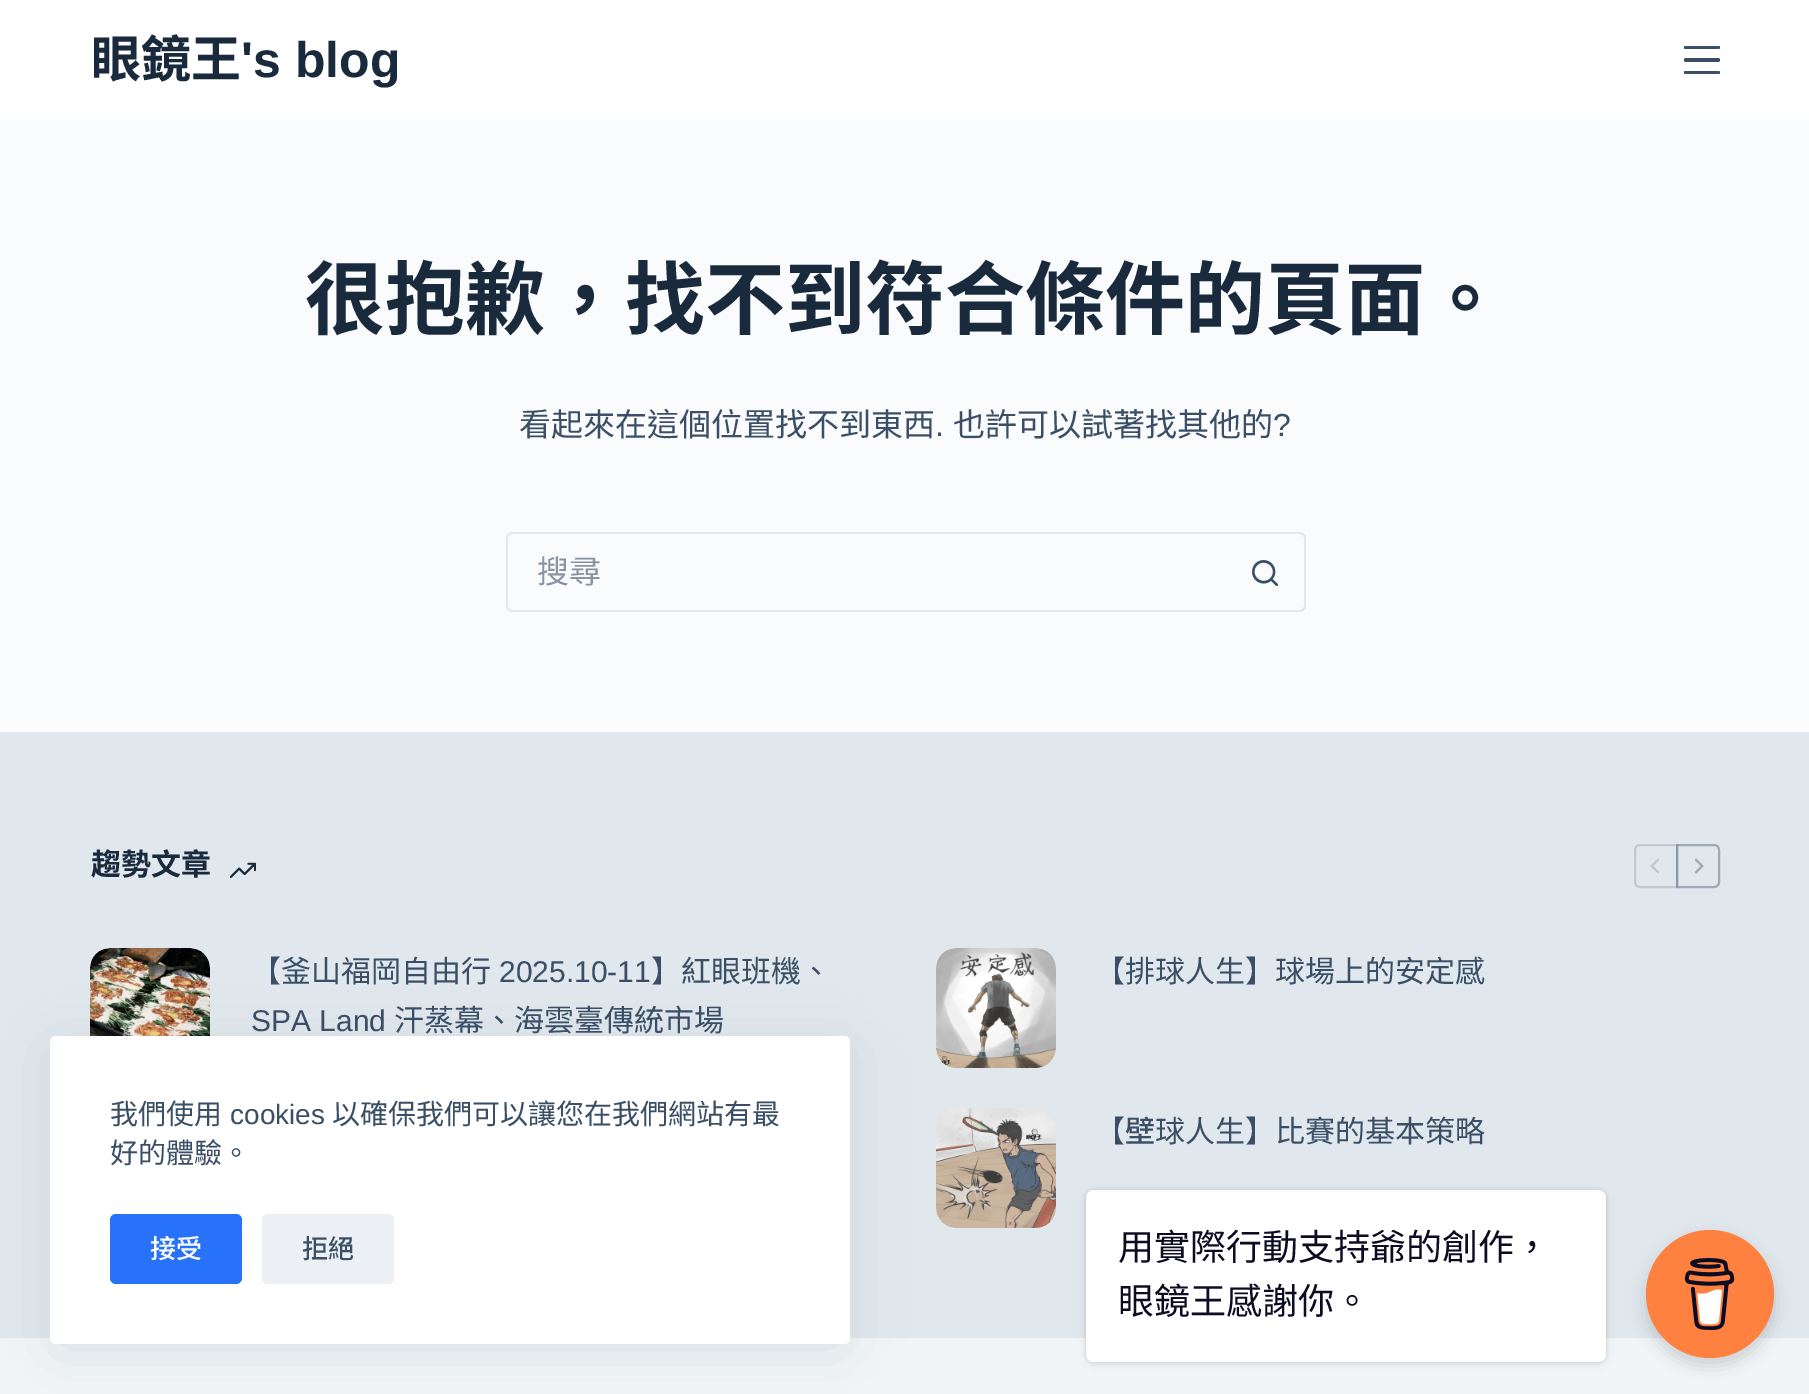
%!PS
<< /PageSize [1809 1394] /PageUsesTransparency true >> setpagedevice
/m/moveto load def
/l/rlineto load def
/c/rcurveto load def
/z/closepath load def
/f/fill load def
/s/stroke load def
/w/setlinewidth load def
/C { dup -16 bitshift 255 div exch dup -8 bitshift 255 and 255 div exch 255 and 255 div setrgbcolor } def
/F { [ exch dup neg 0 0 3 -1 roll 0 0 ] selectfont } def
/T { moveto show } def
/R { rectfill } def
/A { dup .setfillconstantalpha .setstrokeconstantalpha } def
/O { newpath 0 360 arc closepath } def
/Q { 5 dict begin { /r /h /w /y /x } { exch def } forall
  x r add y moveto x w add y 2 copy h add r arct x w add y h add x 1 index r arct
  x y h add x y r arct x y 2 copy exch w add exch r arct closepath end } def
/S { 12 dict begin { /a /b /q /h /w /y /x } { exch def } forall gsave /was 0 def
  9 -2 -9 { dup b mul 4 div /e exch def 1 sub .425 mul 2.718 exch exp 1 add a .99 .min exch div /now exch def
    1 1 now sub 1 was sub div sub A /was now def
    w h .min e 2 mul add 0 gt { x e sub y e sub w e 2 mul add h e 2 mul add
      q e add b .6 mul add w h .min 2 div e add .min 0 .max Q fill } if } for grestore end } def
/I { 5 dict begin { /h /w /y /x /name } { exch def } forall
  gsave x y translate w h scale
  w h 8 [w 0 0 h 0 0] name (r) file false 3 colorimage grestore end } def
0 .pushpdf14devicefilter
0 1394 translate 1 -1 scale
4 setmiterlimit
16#FAFBFC C
0 0 1809 1394 R
16#FFFFFF C
0 0 1809 120 R
/NotoSansTC-Bold 50 F
16#192A3D C
(眼鏡王) 91 77 T
/LiberationSans-Bold 50 F
('s blog) 241 77 T
16#3A4F66 C
1684 46 36 3 1.5 Q f
1684 58 36 4 2 Q f
1684 71 36 3 1.5 Q f
/NotoSansTC-Bold 80 F
16#192A3D C
(很抱歉，找不到符合條件的頁面。) 305 328 T
/NotoSansCJKTC-Regular 32 F
16#3A4F66 C
(看起來在這個位置找不到東西) 519 436 T
/LiberationSans-Regular 32 F
(.) 935 436 T
/NotoSansCJKTC-Regular 32 F
(也許可以試著找其他的) 953 436 T
/LiberationSans-Regular 32 F
(?) 1273 436 T
16#E1E8ED C
512 532 m 714 0 l 0 80 l -714 0 l -3 0 -6 -3 -6 -6 c 0 -68 l 0 -3 3 -6 6 -6 c z 512 534 m 714 0 l 0 76 l -714 0 l -2 0 -4 -2 -4 -4 c 0 -68 l 0 -2 2 -4 4 -4 c z eofill
/NotoSansCJKTC-Regular 32 F
16#8794A2 C
(搜尋) 537 583 T
16#E1E8ED C
1226 532 m 74 0 l 3 0 6 3 6 6 c 0 68 l 0 3 -3 6 -6 6 c -74 0 l z 1226 534 m 74 0 l 2 0 4 2 4 4 c 0 68 l 0 2 -2 4 -4 4 c -74 0 l z eofill
(1.rgb) 1252 560 26 26 I
0 732 1809 606 R
/NotoSansTC-Bold 30 F
16#192A3D C
(趨勢文章) 91 875 T
(2.rgb) 230 862 26 16 I
16#C0C9D2 C
2 w
1640 845 m 37 0 l 0 42 l -37 0 l -3 0 -5 -2 -5 -5 c 0 -32 l 0 -3 2 -5 5 -5 c z s
(3.rgb) 1650 858 9 16 I
0.4 A
16#3A4F66 C
1677 845 m 37 0 l 3 0 5 2 5 5 c 0 32 l 0 3 -2 5 -5 5 c -37 0 l z s
1 A
(4.rgb) 1694 858 10 16 I
(5.rgb) 90 948 120 88 I
/NotoSansCJKTC-Regular 30 F
(【釜山福岡自由行) 251 982 T
/LiberationSans-Regular 30 F
(2025.10-11) 499 982 T
/NotoSansCJKTC-Regular 30 F
(】紅眼班機、) 651 982 T
/LiberationSans-Regular 30 F
(SPA Land) 251 1031 T
/NotoSansCJKTC-Regular 30 F
(汗蒸幕、海雲臺傳統市場) 394 1031 T
(6.rgb) 936 948 120 120 I
(【排球人生】球場上的安定感) 1095 982 T
(7.rgb) 936 1108 120 120 I
(【) 1095 1142 T
/NotoSansTC-Medium 30 F
(壁) 1125 1142 T
/NotoSansCJKTC-Regular 30 F
(球人生】比賽的基本策略) 1155 1142 T
16#F2F5F7 C
0 1338 1809 56 R
16#223865 C
60 1056 780 288 0 30 .15 S
16#FFFFFF C
50 1036 800 308 6 Q f
/NotoSansCJKTC-Regular 28 F
16#3A4F66 C
(我們使用) 110 1124 T
/LiberationSans-Regular 28 F
(cookies) 230 1124 T
/NotoSansCJKTC-Regular 28 F
(以確保我們可以讓您在我們網站有最) 332 1124 T
(好的體驗。) 110 1163 T
16#2872FA C
110 1214 132 70 6 Q f
/NotoSansTC-Medium 26 F
16#FFFFFF C
(接受) 150 1258 T
16#ECEFF3 C
262 1214 132 70 6 Q f
16#3A4F66 C
(拒絕) 302 1258 T
16#000000 C
1086 1190 520 172 8 2 .15 S
1086 1194 520 172 8 5 .05 S
16#FFFFFF C
1086 1190 520 172 8 Q f
/NotoSansCJKTC-Regular 36 F
16#0D0C22 C
(用實際行動支持爺的創作，) 1118 1260 T
(眼鏡王感謝你。) 1118 1314 T
16#000000 C
1646 1238 128 128 64 8 .15 S
16#FF813F C
1710 1294 64 O f
(8.rgb) 1684 1258 51 72 I
.poppdf14devicefilter showpage
